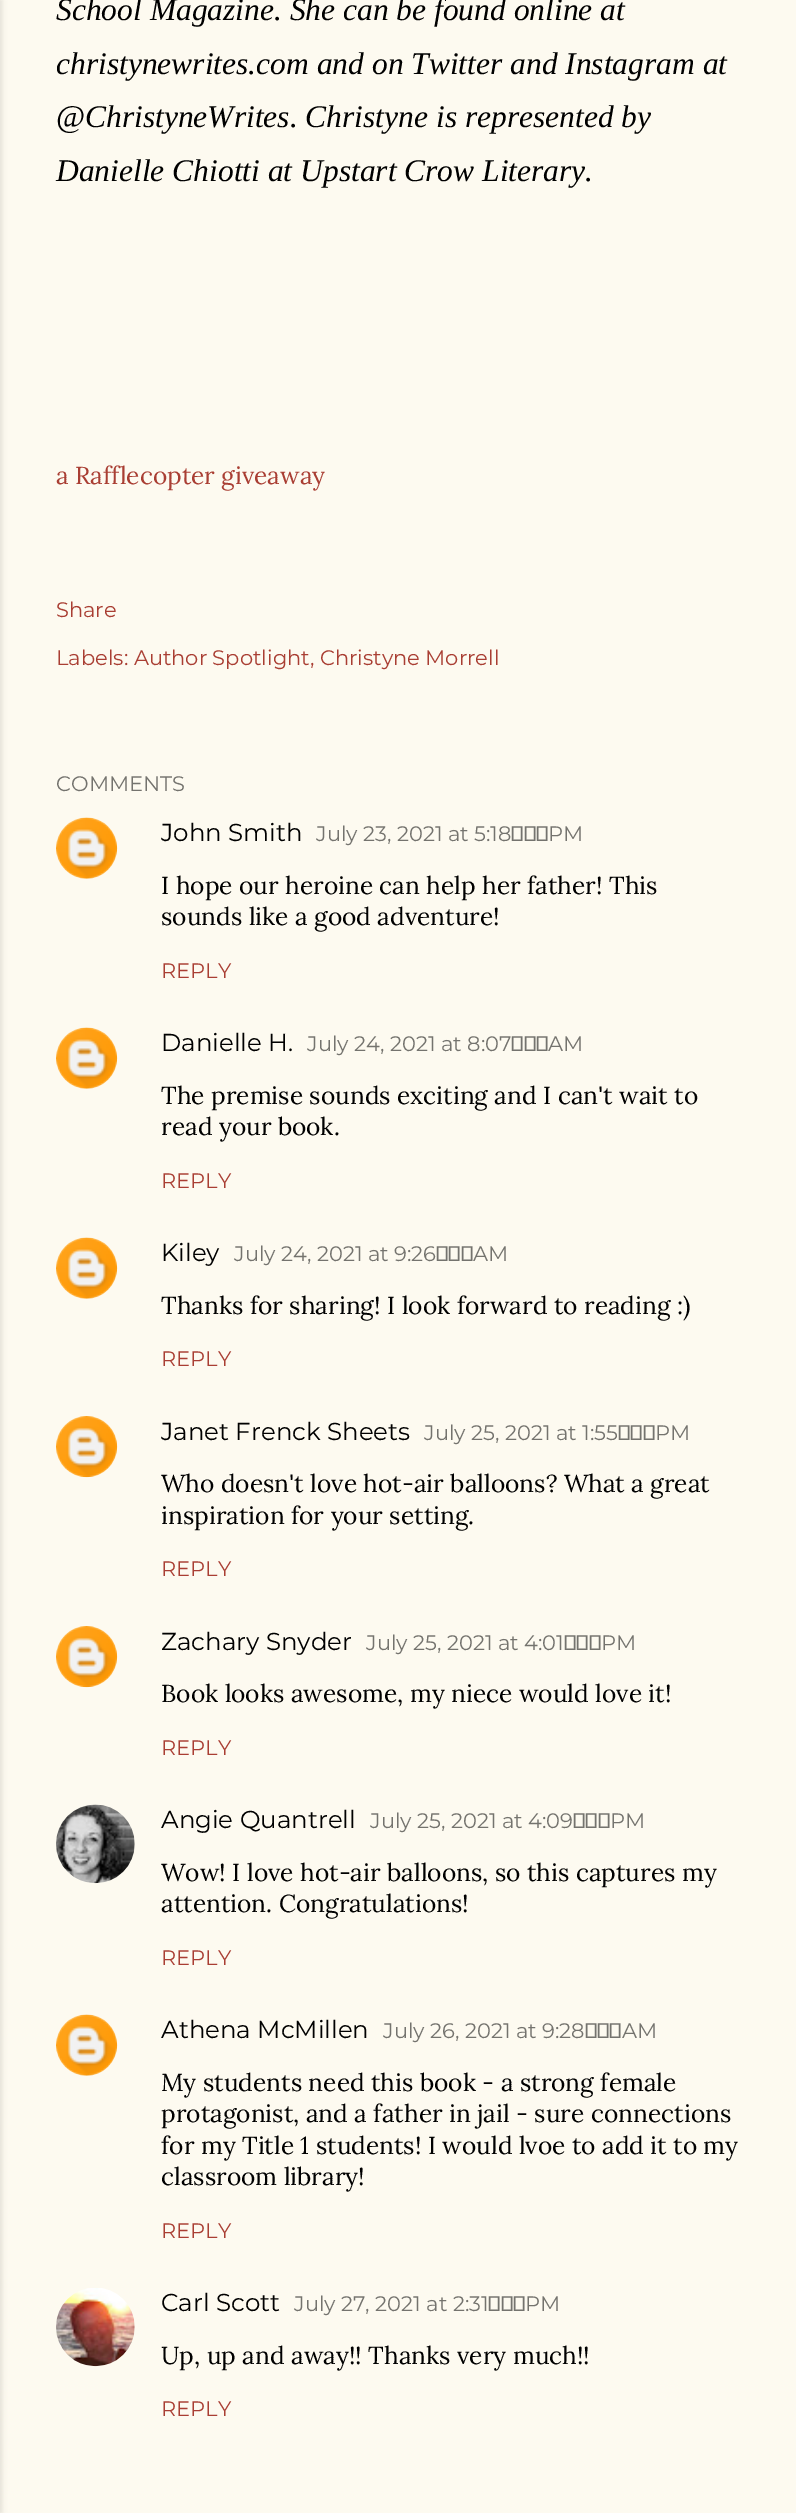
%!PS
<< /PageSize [796 2513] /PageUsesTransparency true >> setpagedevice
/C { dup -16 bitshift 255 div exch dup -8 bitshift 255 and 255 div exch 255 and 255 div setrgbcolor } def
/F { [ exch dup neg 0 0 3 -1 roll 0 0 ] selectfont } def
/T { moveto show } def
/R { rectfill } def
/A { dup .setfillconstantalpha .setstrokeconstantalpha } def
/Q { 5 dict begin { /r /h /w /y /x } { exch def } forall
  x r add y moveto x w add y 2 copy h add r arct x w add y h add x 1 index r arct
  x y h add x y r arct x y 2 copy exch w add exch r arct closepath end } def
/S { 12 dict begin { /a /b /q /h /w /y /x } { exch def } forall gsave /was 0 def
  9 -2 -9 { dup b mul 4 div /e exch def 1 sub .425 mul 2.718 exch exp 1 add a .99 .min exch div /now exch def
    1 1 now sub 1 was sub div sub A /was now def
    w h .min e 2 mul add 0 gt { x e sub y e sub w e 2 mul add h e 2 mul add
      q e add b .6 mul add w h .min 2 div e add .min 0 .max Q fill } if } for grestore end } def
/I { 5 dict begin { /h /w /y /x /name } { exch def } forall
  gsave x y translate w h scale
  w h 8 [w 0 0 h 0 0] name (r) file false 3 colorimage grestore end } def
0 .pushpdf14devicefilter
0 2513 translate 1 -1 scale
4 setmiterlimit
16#FDFAF0 C
0 0 796 2513 R
16#000000 C
-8 0 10 2513 0 2.5 .1 S
/LiberationSerif-Italic 31.5 F
(School Magazine. She can be found online at) 56 20 T
(christynewrites.com and on Twitter and Instagram at) 56 74 T
(@ChristyneWrites. Christyne is represented by) 56 127 T
(Danielle Chiotti at Upstart Crow Literary.) 56 181 T
/Lora-Regular 24.5 F
16#A93E33 C
(a Rafflecopter giveaway) 56 484 T
/Montserrat-Thin 21 F
(Share) 56 617 T
(Labels: Author Spotlight, Christyne Morrell) 56 665 T
16#74736E C
(COMMENTS) 56 791 T
(1.rgb) 56 817 62 62 I
/Montserrat-Thin 24.5 F
16#000000 C
(John Smith) 161 841 T
/Montserrat-Thin 21 F
16#74736E C
(July 23, 2021 at 5:18 PM) 316 841 T
/Lora-Regular 24.5 F
16#000000 C
(I hope our heroine can help her father! This) 161 894 T
(sounds like a good adventure!) 161 925 T
/Montserrat-Thin 21 F
16#A93E33 C
(REPLY) 161 978 T
(2.rgb) 56 1027 62 62 I
/Montserrat-Thin 24.5 F
16#000000 C
(Danielle H.) 161 1051 T
/Montserrat-Thin 21 F
16#74736E C
(July 24, 2021 at 8:07 AM) 307 1051 T
/Lora-Regular 24.5 F
16#000000 C
(The premise sounds exciting and I can't wait to) 161 1104 T
(read your book.) 161 1135 T
/Montserrat-Thin 21 F
16#A93E33 C
(REPLY) 161 1188 T
(2.rgb) 56 1237 62 62 I
/Montserrat-Thin 24.5 F
16#000000 C
(Kiley) 161 1261 T
/Montserrat-Thin 21 F
16#74736E C
(July 24, 2021 at 9:26 AM) 234 1261 T
/Lora-Regular 24.5 F
16#000000 C
(Thanks for sharing! I look forward to reading :\)) 161 1314 T
/Montserrat-Thin 21 F
16#A93E33 C
(REPLY) 161 1366 T
(3.rgb) 56 1416 62 62 I
/Montserrat-Thin 24.5 F
16#000000 C
(Janet Frenck Sheets) 161 1440 T
/Montserrat-Thin 21 F
16#74736E C
(July 25, 2021 at 1:55 PM) 424 1440 T
/Lora-Regular 24.5 F
16#000000 C
(Who doesn't love hot-air balloons? What a great) 161 1492 T
(inspiration for your setting.) 161 1524 T
/Montserrat-Thin 21 F
16#A93E33 C
(REPLY) 161 1576 T
(4.rgb) 56 1626 62 62 I
/Montserrat-Thin 24.5 F
16#000000 C
(Zachary Snyder) 161 1650 T
/Montserrat-Thin 21 F
16#74736E C
(July 25, 2021 at 4:01 PM) 366 1650 T
/Lora-Regular 24.5 F
16#000000 C
(Book looks awesome, my niece would love it!) 161 1702 T
/Montserrat-Thin 21 F
16#A93E33 C
(REPLY) 161 1755 T
(5.rgb) 56 1804 79 80 I
/Montserrat-Thin 24.5 F
16#000000 C
(Angie Quantrell) 161 1828 T
/Montserrat-Thin 21 F
16#74736E C
(July 25, 2021 at 4:09 PM) 370 1828 T
/Lora-Regular 24.5 F
16#000000 C
(Wow! I love hot-air balloons, so this captures my) 161 1881 T
(attention. Congratulations!) 161 1912 T
/Montserrat-Thin 21 F
16#A93E33 C
(REPLY) 161 1965 T
(2.rgb) 56 2014 62 62 I
/Montserrat-Thin 24.5 F
16#000000 C
(Athena McMillen) 161 2038 T
/Montserrat-Thin 21 F
16#74736E C
(July 26, 2021 at 9:28 AM) 383 2038 T
/Lora-Regular 24.5 F
16#000000 C
(My students need this book - a strong female) 161 2091 T
(protagonist, and a father in jail - sure connections) 161 2122 T
(for my Title 1 students! I would lvoe to add it to my) 161 2154 T
(classroom library!) 161 2185 T
/Montserrat-Thin 21 F
16#A93E33 C
(REPLY) 161 2238 T
(6.rgb) 56 2288 79 79 I
/Montserrat-Thin 24.5 F
16#000000 C
(Carl Scott) 161 2311 T
/Montserrat-Thin 21 F
16#74736E C
(July 27, 2021 at 2:31 PM) 294 2311 T
/Lora-Regular 24.5 F
16#000000 C
(Up, up and away!! Thanks very much!!) 161 2364 T
/Montserrat-Thin 21 F
16#A93E33 C
(REPLY) 161 2416 T
.poppdf14devicefilter showpage
